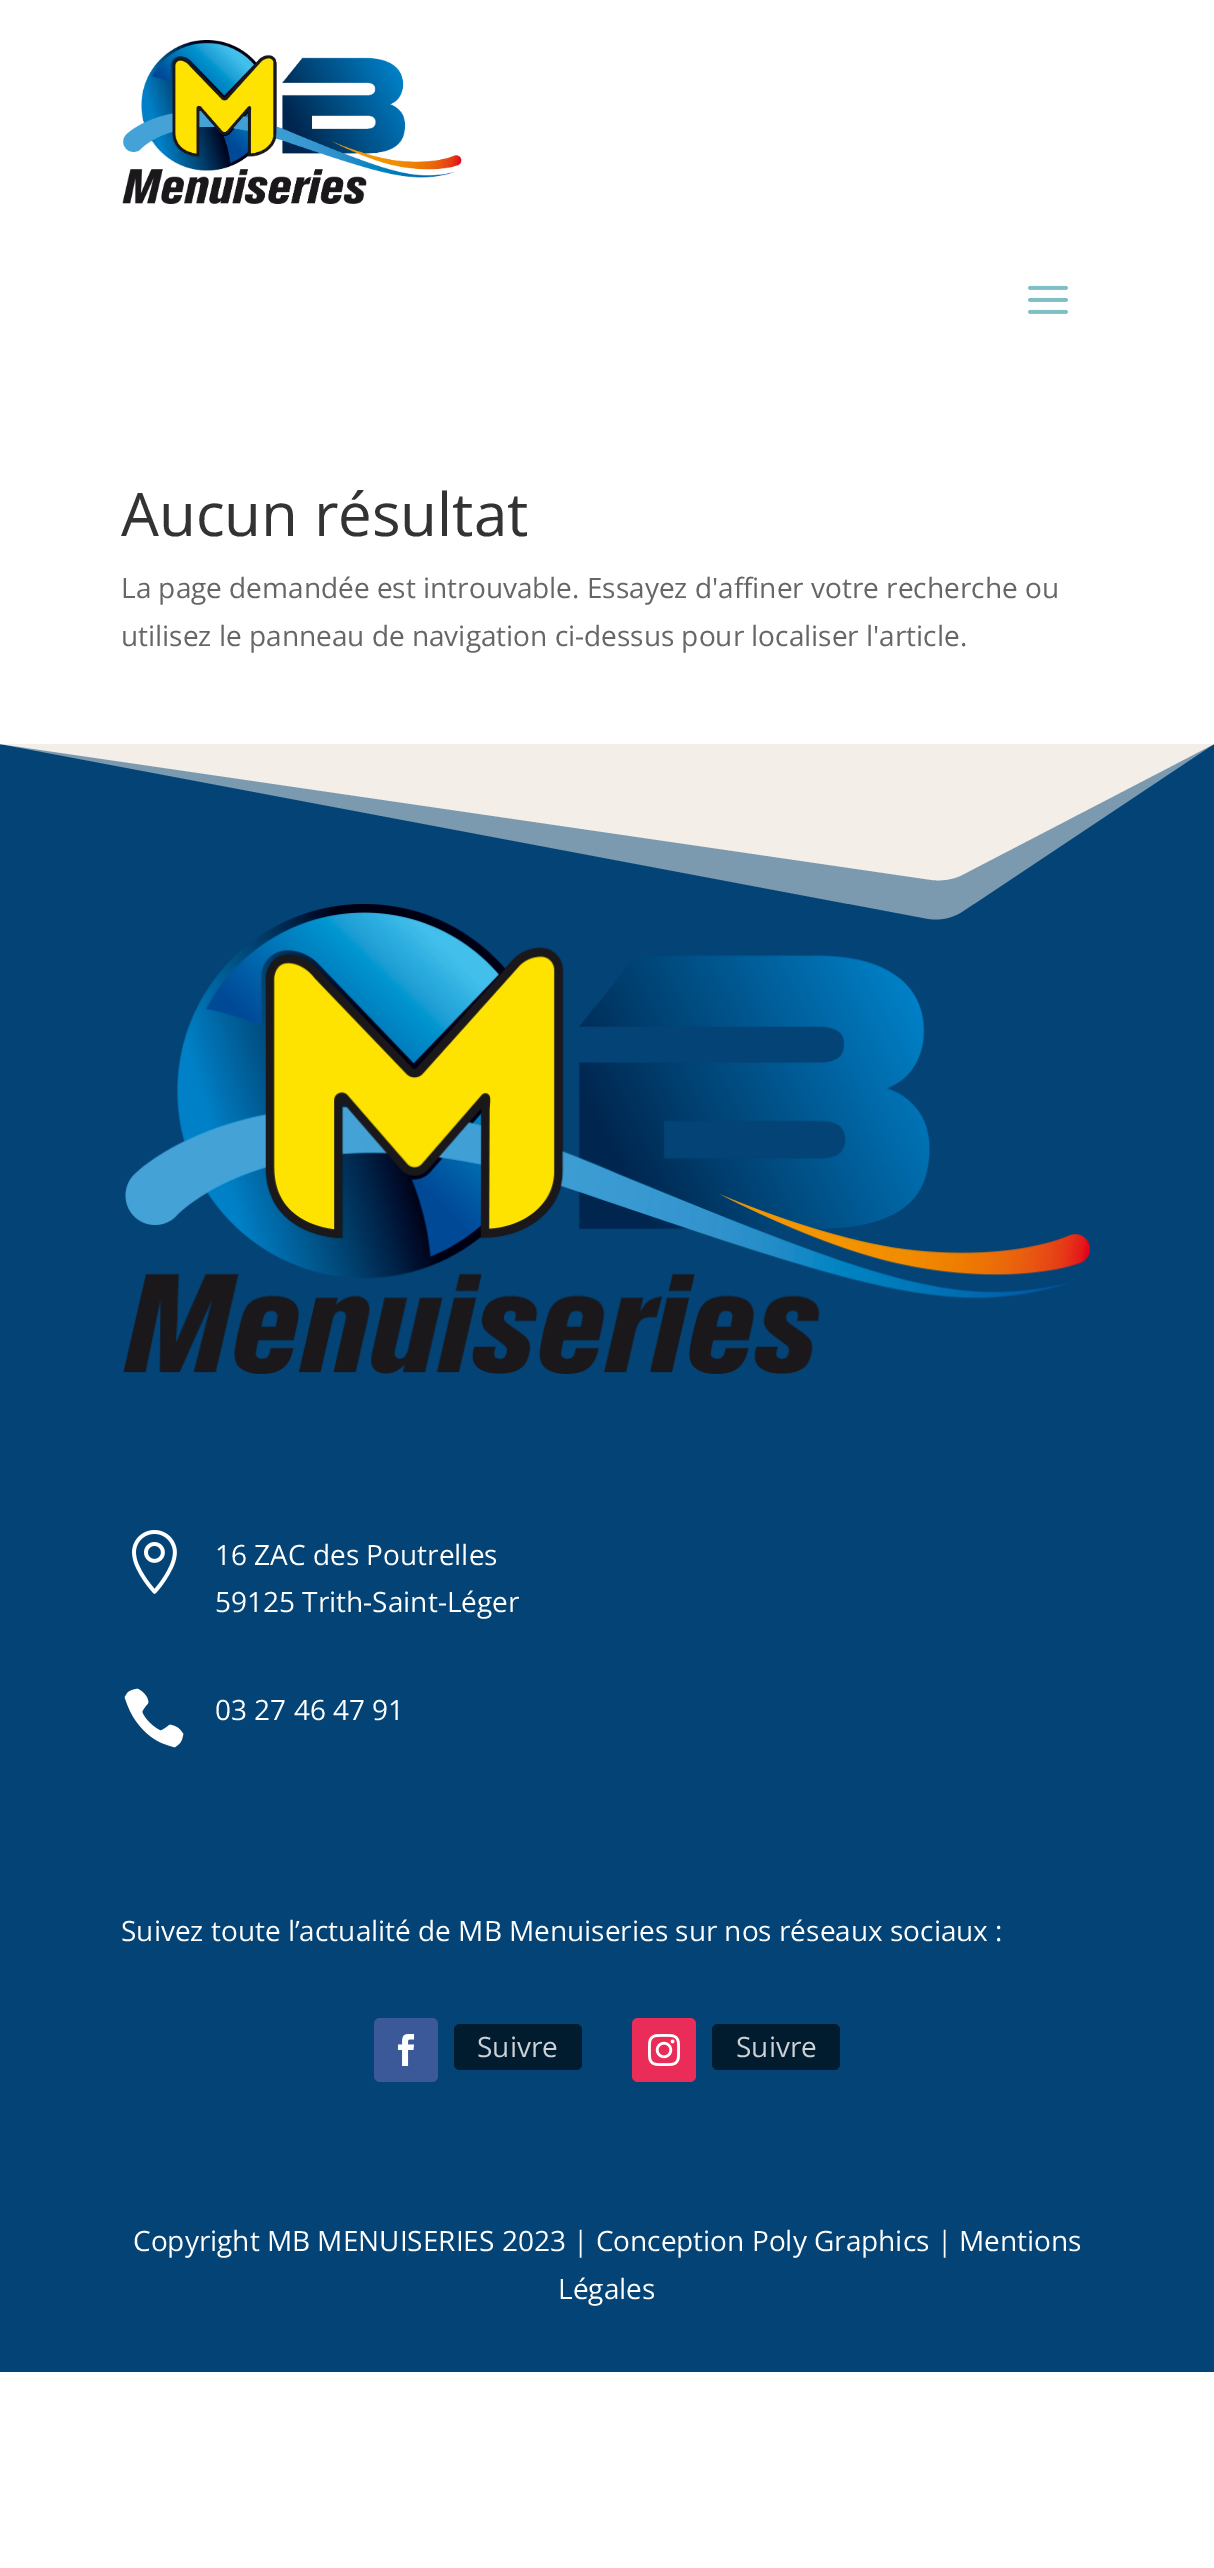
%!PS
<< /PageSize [1214 2568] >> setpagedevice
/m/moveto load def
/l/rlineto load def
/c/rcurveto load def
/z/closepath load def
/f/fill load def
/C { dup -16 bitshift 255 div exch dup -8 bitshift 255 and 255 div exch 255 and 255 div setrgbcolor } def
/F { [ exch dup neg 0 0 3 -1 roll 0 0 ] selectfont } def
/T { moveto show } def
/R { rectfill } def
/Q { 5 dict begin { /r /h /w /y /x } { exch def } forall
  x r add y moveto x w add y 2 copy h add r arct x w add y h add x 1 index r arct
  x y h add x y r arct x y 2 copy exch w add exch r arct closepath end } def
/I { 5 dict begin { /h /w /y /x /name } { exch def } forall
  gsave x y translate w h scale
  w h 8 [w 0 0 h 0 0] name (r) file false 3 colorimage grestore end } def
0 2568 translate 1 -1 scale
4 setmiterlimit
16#FFFFFF C
0 0 1214 2568 R
(1.rgb) 122 40 340 164 I
(2.rgb) 1028 285 40 29 I
/OpenSans-Regular 60 F
16#333333 C
(Aucun résultat) 121 536 T
/OpenSans-Regular 28 F
16#666666 C
(La page demandée est introuvable. Essayez d'affiner votre recherche ou) 121 598 T
(utilisez le panneau de navigation ci-dessus pour localiser l'article.) 121 646 T
16#034375 C
0 744 1214 1628 R
16#7B99AF C
928 919 m -928 -175 l 1214 0 l -249 166 l -11 8 -24 11 -37 9 c z f
16#F3EEE8 C
932 880 m -932 -136 l 1214 0 l -252 131 l -10 5 -20 6 -30 5 c z f
(3.rgb) 123 904 967 470 I
(4.rgb) 132 1530 45 64 I
16#FFFFFF C
(16 ZAC des Poutrelles) 215 1565 T
(59125 Trith-Saint-Léger) 215 1612 T
(5.rgb) 124 1688 60 60 I
(03 27 46 47 91) 215 1720 T
(Suivez toute l’actualité de MB Menuiseries sur nos réseaux sociaux :) 121 1941 T
16#3B5998 C
374 2018 64 64 6 Q f
(6.rgb) 398 2034 17 32 I
16#011B2F C
454 2024 128 46 6 Q f
16#CCD1D5 C
(Suivre) 477 2057 T
16#EA2C59 C
632 2018 64 64 6 Q f
(7.rgb) 648 2034 32 32 I
16#011B2F C
712 2024 128 46 6 Q f
16#CCD1D5 C
(Suivre) 736 2057 T
16#FFFFFF C
(Copyright MB MENUISERIES 2023 | Conception Poly Graphics | Mentions) 133 2251 T
(Légales) 558 2299 T
showpage
